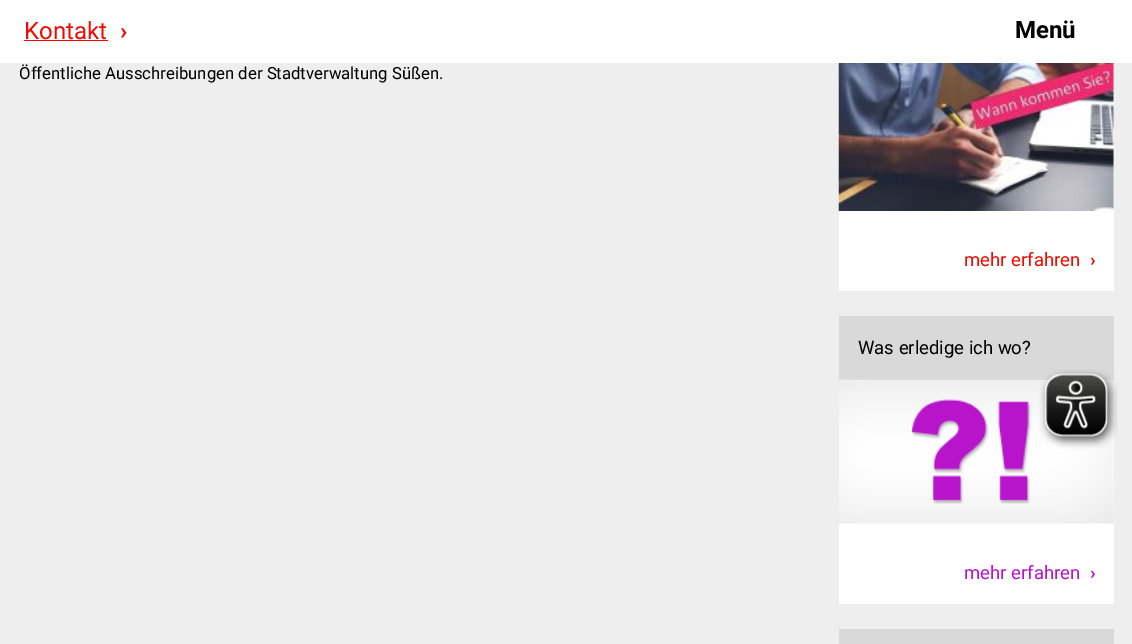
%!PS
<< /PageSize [1132 644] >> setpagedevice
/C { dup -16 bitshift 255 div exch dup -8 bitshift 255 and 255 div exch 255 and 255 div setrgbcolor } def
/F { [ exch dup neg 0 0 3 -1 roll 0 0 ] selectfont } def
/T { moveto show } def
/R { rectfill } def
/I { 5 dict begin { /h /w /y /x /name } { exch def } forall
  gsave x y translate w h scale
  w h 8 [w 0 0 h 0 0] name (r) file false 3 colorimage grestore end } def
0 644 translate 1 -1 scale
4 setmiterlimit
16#EEEEEE C
0 0 1132 644 R
16#FFFFFF C
0 0 1132 63 R
/Roboto-Regular 24 F
16#F20A00 C
(Kontakt) 24 39 T
24 40 84 1 R
/Roboto-Bold 24 F
(›) 120 39 T
16#000000 C
(Menü) 1015 38 T
/Roboto-Regular 16.75 F
(Öffentliche Ausschreibungen der Stadtverwaltung Süßen.) 19 79 T
16#FFFFFF C
839 63 275 228 R
(1.rgb) 838 63 276 148 I
/Roboto-Regular 18.5 F
16#F20A00 C
(mehr erfahren) 964 266 T
/Roboto-Bold 18.5 F
(›) 1090 266 T
16#FFFFFF C
839 380 275 224 R
16#D9D9D9 C
839 316 275 64 R
/Roboto-Regular 18.5 F
16#000000 C
(Was erledige ich wo?) 858 354 T
(2.rgb) 839 379 275 145 I
16#B814CC C
(mehr erfahren) 964 579 T
/Roboto-Bold 18.5 F
(›) 1090 579 T
16#D9D9D9 C
839 629 275 15 R
(3.rgb) 1039 369 79 80 I
showpage
